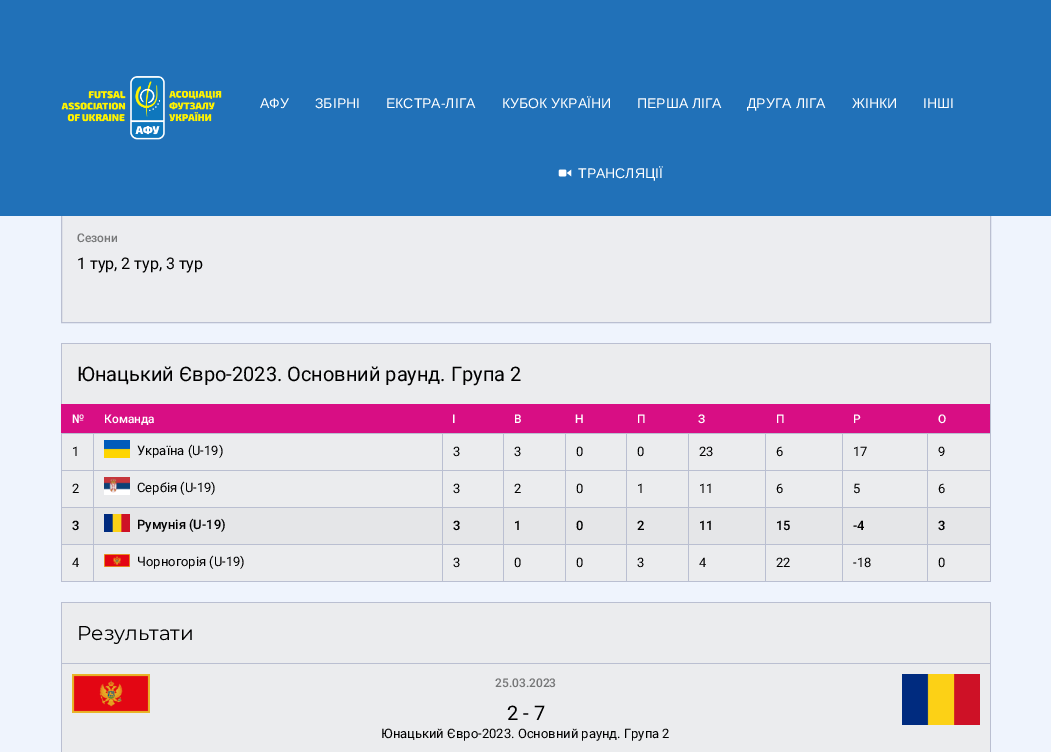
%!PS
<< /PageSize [1051 752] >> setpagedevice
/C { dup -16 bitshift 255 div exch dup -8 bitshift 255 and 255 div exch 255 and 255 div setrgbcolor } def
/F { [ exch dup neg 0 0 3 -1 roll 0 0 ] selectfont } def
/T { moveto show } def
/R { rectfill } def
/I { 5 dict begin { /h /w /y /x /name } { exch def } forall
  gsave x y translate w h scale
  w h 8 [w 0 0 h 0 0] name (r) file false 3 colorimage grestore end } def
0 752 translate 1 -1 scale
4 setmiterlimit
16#EFF4FD C
0 0 1051 752 R
16#ECEDF0 C
62 216 928 106 R
16#BABFD1 C
61.5 147.5 929 175 rectstroke
16#2171B8 C
0 0 1051 216 R
(1.rgb) 61 76 161 64 I
/LiberationSans-Regular 14 F
16#FFFFFF C
(АФУ) 260 108 T
(ЗБІРНІ) 315 108 T
(ЕКСТРА-ЛІГА) 386 108 T
(КУБОК УКРАЇНИ) 502 108 T
(ПЕРША ЛІГА) 637 108 T
(ДРУГА ЛІГА) 747 108 T
(ЖІНКИ) 852 108 T
(ІНШІ) 923 108 T
(2.rgb) 558 169 14 8 I
(ТРАНСЛЯЦІЇ) 578 178 T
/Roboto-Medium 12 F
16#767778 C
(Сезони) 77 242 T
/Roboto-Regular 16 F
16#000000 C
(1 тур, 2 тур, 3 тур) 77 269 T
16#EBECEE C
62 344 928 60 R
16#BABFD1 C
61 343 930 1 R
990 343 1 239 R
61 343 1 61 R
/Roboto-Regular 20 F
16#000000 C
(Юнацький Євро-2023. Основний раунд. Група 2) 77 381 T
16#EBECEE C
62 434 928 147 R
16#BABFD1 C
61 581 930 1 R
61 434 1 148 R
16#D80E84 C
61 404 929 29 R
/Roboto-Medium 12 F
16#FFFFFF C
(№) 72 423 T
(Команда) 104 423 T
(І) 452 423 T
(В) 514 423 T
(Н) 575 423 T
(П) 637 423 T
(З) 698 423 T
(П) 776 423 T
(Р) 853 423 T
(О) 938 423 T
16#BABFD1 C
927 433 64 1 R
927 470 64 1 R
927 507 64 1 R
927 544 64 1 R
927 544 1 38 R
842 544 86 1 R
927 507 1 38 R
842 507 86 1 R
927 470 1 38 R
842 470 86 1 R
927 433 1 38 R
842 433 86 1 R
842 544 1 38 R
765 544 78 1 R
842 507 1 38 R
765 507 78 1 R
842 470 1 38 R
765 470 78 1 R
842 433 1 38 R
765 433 78 1 R
765 544 1 38 R
688 544 78 1 R
765 507 1 38 R
688 507 78 1 R
765 470 1 38 R
688 470 78 1 R
765 433 1 38 R
688 433 78 1 R
688 544 1 38 R
626 544 63 1 R
688 507 1 38 R
626 507 63 1 R
688 470 1 38 R
626 470 63 1 R
688 433 1 38 R
626 433 63 1 R
626 544 1 38 R
565 544 62 1 R
626 507 1 38 R
565 507 62 1 R
626 470 1 38 R
565 470 62 1 R
626 433 1 38 R
565 433 62 1 R
565 544 1 38 R
503 544 63 1 R
565 507 1 38 R
503 507 63 1 R
565 470 1 38 R
503 470 63 1 R
565 433 1 38 R
503 433 63 1 R
503 544 1 38 R
442 544 62 1 R
503 507 1 38 R
442 507 62 1 R
503 470 1 38 R
442 470 62 1 R
503 433 1 38 R
442 433 62 1 R
442 544 1 38 R
93 544 350 1 R
442 507 1 38 R
93 507 350 1 R
442 470 1 38 R
93 470 350 1 R
442 433 1 38 R
93 433 350 1 R
93 544 1 38 R
61 544 33 1 R
93 507 1 38 R
61 507 33 1 R
93 470 1 38 R
61 470 33 1 R
93 433 1 38 R
61 433 33 1 R
/Roboto-Regular 13 F
16#000000 C
(1) 72 456 T
(3.rgb) 104 440 26 18 I
(Україна \(U-19\)) 137 455 T
(3) 453 456 T
(3) 514 456 T
(0) 576 456 T
(0) 637 456 T
(23) 699 456 T
(6) 776 456 T
(17) 853 456 T
(9) 938 456 T
(2) 72 493 T
(4.rgb) 104 477 26 18 I
(Cербія \(U-19\)) 137 492 T
(3) 453 493 T
(2) 514 493 T
(0) 576 493 T
(1) 637 493 T
(11) 699 493 T
(6) 776 493 T
(5) 853 493 T
(6) 938 493 T
16#E5E6E8 C
62 508 31 36 R
/Roboto-Medium 13 F
16#000000 C
(3) 72 530 T
16#E5E6E8 C
94 508 348 36 R
(5.rgb) 104 514 26 18 I
16#000000 C
(Румунія \(U-19\)) 137 529 T
16#E5E6E8 C
443 508 60 36 R
16#000000 C
(3) 453 530 T
16#E5E6E8 C
504 508 61 36 R
16#000000 C
(1) 514 530 T
16#E5E6E8 C
566 508 60 36 R
16#000000 C
(0) 576 530 T
16#E5E6E8 C
627 508 61 36 R
16#000000 C
(2) 637 530 T
16#E5E6E8 C
689 508 76 36 R
16#000000 C
(11) 699 530 T
16#E5E6E8 C
766 508 76 36 R
16#000000 C
(15) 776 530 T
16#E5E6E8 C
843 508 84 36 R
16#000000 C
(-4) 853 530 T
16#E5E6E8 C
928 508 62 36 R
16#000000 C
(3) 938 530 T
/Roboto-Regular 13 F
(4) 72 567 T
(6.rgb) 104 554 26 13 I
(Чорногорія \(U-19\)) 137 566 T
(3) 453 567 T
(0) 514 567 T
(0) 576 567 T
(3) 637 567 T
(4) 699 567 T
(22) 776 567 T
(-18) 853 567 T
(0) 938 567 T
16#EBECEE C
62 603 928 60 R
16#BABFD1 C
61 602 930 1 R
990 602 1 61 R
61 602 1 61 R
/Montserrat-Regular 20 F
16#000000 C
(Результати) 77 640 T
16#EBECEE C
62 664 928 88 R
16#BABFD1 C
61 663 930 1 R
990 663 1 89 R
61 663 1 89 R
(7.rgb) 72 674 78 39 I
/Roboto-Medium 12 F
16#767778 C
(25.03.2023) 495 687 T
(8.rgb) 902 674 78 51 I
/Roboto-Regular 20 F
16#000000 C
(2 - 7) 507 720 T
/Roboto-Regular 13 F
(Юнацький Євро-2023. Основний раунд. Група 2) 381 738 T
showpage
